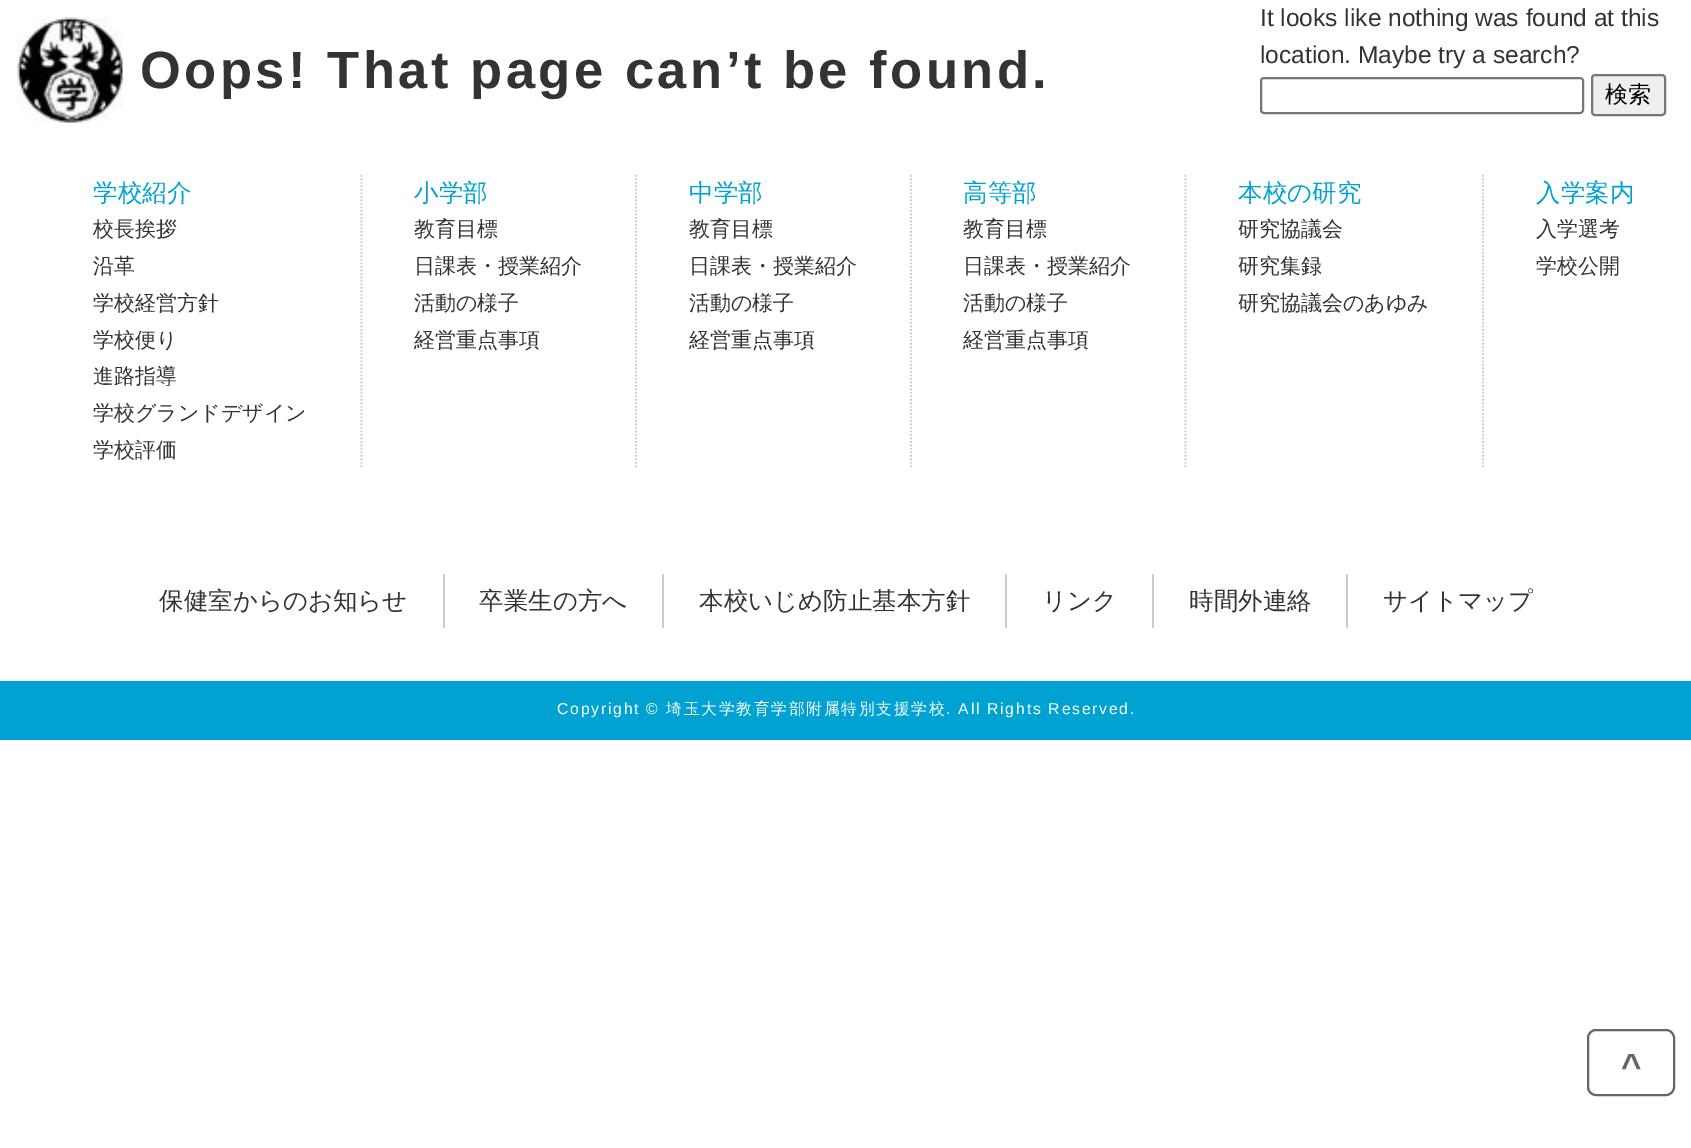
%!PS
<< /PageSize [1691 1148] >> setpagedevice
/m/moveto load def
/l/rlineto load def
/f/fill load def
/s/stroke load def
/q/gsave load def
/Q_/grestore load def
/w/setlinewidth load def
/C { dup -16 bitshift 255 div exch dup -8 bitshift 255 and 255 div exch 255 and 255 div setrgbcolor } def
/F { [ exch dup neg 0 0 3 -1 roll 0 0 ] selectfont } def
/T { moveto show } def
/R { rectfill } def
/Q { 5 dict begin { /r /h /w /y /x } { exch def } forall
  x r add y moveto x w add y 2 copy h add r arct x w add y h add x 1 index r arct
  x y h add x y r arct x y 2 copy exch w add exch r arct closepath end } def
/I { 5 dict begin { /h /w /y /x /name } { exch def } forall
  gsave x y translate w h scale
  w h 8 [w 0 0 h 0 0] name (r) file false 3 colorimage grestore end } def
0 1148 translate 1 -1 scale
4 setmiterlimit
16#FFFFFF C
0 0 1691 1148 R
(1.rgb) 17 17 106 106 I
/LiberationSans-Bold 52.5 F
16#333333 C
140 88 m 3.5 0 (Oops! That page can’t be found.) ashow
/LiberationSans-Regular 24.5 F
(It looks like nothing was found at this) 1260 26 T
(location. Maybe try a search?) 1260 63 T
16#767676 C
2 w
1261 78 322 35 3 Q s
16#EFEFEF C
1592 75 73 40 3 Q q f Q_
16#767676 C
s
/WenQuanYiZenHei-Medium 23 F
16#000000 C
(検索) 1605 102 T
/WenQuanYiZenHei-Medium 24.5 F
16#00A2D1 C
(学校紹介) 93 201 T
/WenQuanYiZenHei-Medium 21 F
16#333333 C
(校長挨拶) 93 236 T
(沿革) 93 273 T
(学校経営方針) 93 310 T
(学校便り) 93 347 T
(進路指導) 93 383 T
(学校グランドデザイン) 93 420 T
(学校評価) 93 457 T
16#CCCCCC C
1.8 w
[1.75 1.75] 0 setdash
361.5 175 m 0 294 l s
/WenQuanYiZenHei-Medium 24.5 F
16#00A2D1 C
(小学部) 414 201 T
/WenQuanYiZenHei-Medium 21 F
16#333333 C
(教育目標) 414 236 T
(日課表・授業紹介) 414 273 T
(活動の様子) 414 310 T
(経営重点事項) 414 347 T
16#CCCCCC C
636 175 m 0 294 l s
/WenQuanYiZenHei-Medium 24.5 F
16#00A2D1 C
(中学部) 689 201 T
/WenQuanYiZenHei-Medium 21 F
16#333333 C
(教育目標) 689 236 T
(日課表・授業紹介) 689 273 T
(活動の様子) 689 310 T
(経営重点事項) 689 347 T
16#CCCCCC C
911 175 m 0 294 l s
/WenQuanYiZenHei-Medium 24.5 F
16#00A2D1 C
(高等部) 963 201 T
/WenQuanYiZenHei-Medium 21 F
16#333333 C
(教育目標) 963 236 T
(日課表・授業紹介) 963 273 T
(活動の様子) 963 310 T
(経営重点事項) 963 347 T
16#CCCCCC C
1185.5 175 m 0 294 l s
/WenQuanYiZenHei-Medium 24.5 F
16#00A2D1 C
(本校の研究) 1238 201 T
/WenQuanYiZenHei-Medium 21 F
16#333333 C
(研究協議会) 1238 236 T
(研究集録) 1238 273 T
(研究協議会のあゆみ) 1238 310 T
16#CCCCCC C
1483 175 m 0 294 l s
/WenQuanYiZenHei-Medium 24.5 F
16#00A2D1 C
(入学案内) 1536 201 T
/WenQuanYiZenHei-Medium 21 F
16#333333 C
(入学選考) 1536 236 T
(学校公開) 1536 273 T
/WenQuanYiZenHei-Medium 24.5 F
(保健室からのお知らせ) 159 609 T
16#CCCCCC C
443 574 2 54 R
16#333333 C
(卒業生の方へ) 479 609 T
16#CCCCCC C
662 574 2 54 R
16#333333 C
(本校いじめ防止基本方針) 699 609 T
16#CCCCCC C
1005 574 2 54 R
16#333333 C
(リンク) 1042 609 T
16#CCCCCC C
1152 574 2 54 R
16#333333 C
(時間外連絡) 1189 609 T
16#CCCCCC C
1346 574 2 54 R
16#333333 C
(サイトマップ) 1383 609 T
16#00A2D1 C
0 681 1691 59 R
/LiberationSans-Regular 15.75 F
16#FFFFFF C
557 714 m 1.75 0 (Copyright ©) ashow
/WenQuanYiZenHei-Medium 15.75 F
666 714 m 1.75 0 (埼玉大学教育学部附属特別支援学校) ashow
/LiberationSans-Regular 15.75 F
946 714 m 1.75 0 (. All Rights Reserved.) ashow
16#666666 C
2 w
[] 0 setdash
1588 1030 86 65 8 Q s
/LiberationSans-Bold 35 F
(^) 1621 1078 T
showpage
